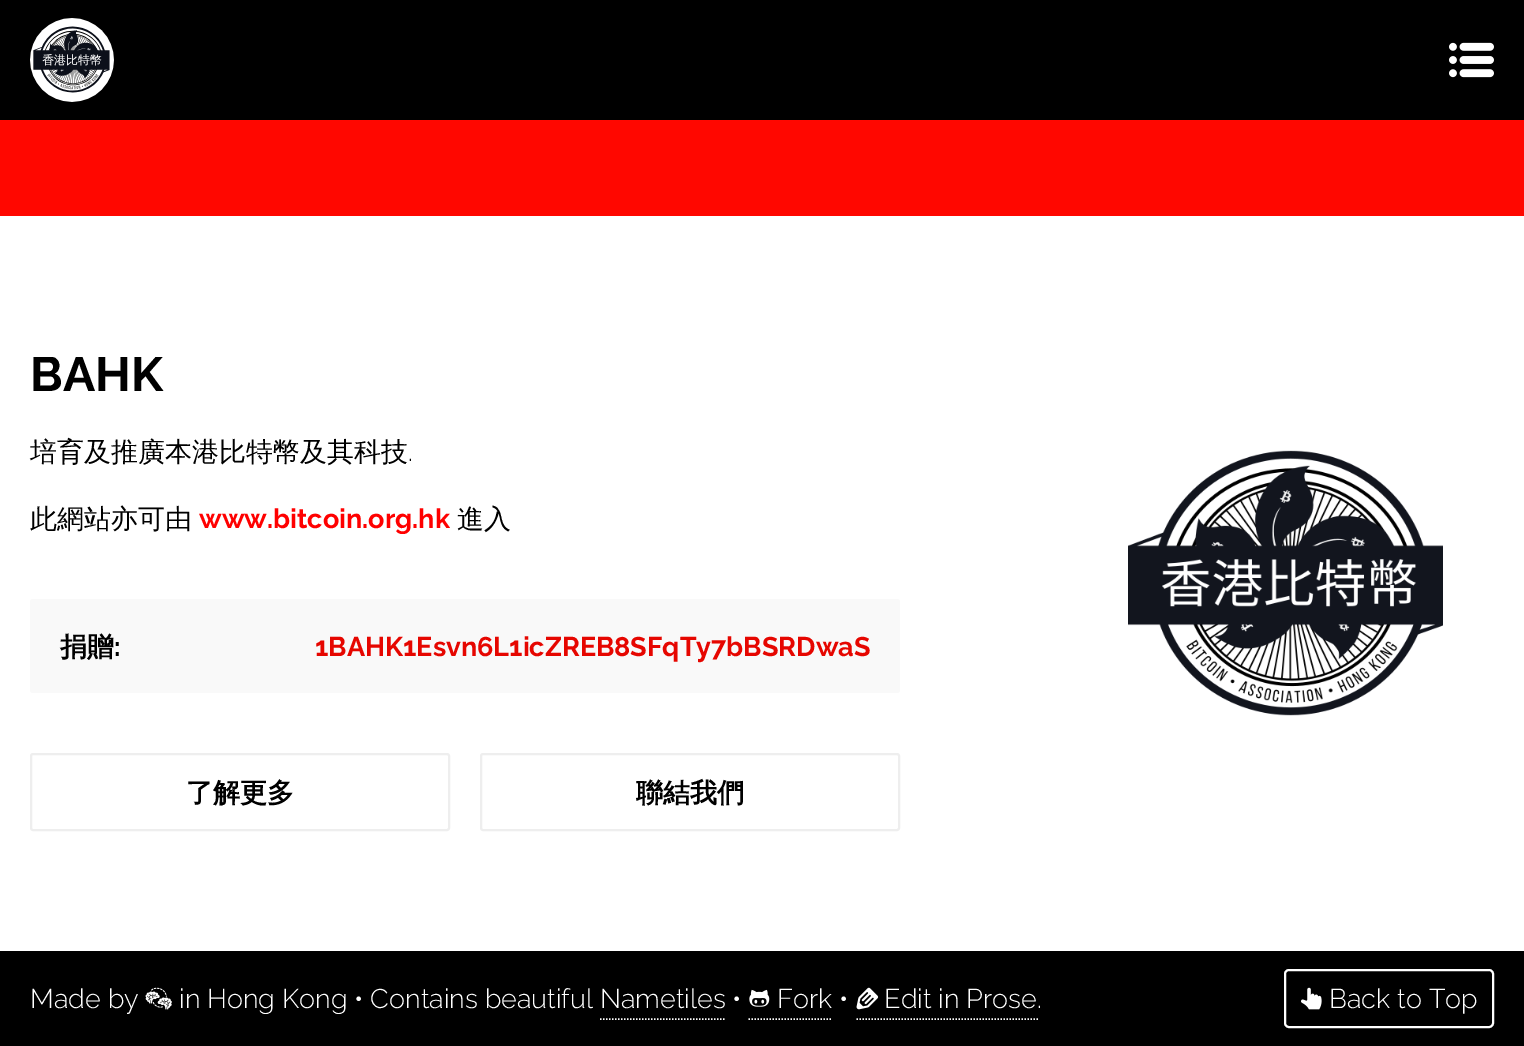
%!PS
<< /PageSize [1524 1046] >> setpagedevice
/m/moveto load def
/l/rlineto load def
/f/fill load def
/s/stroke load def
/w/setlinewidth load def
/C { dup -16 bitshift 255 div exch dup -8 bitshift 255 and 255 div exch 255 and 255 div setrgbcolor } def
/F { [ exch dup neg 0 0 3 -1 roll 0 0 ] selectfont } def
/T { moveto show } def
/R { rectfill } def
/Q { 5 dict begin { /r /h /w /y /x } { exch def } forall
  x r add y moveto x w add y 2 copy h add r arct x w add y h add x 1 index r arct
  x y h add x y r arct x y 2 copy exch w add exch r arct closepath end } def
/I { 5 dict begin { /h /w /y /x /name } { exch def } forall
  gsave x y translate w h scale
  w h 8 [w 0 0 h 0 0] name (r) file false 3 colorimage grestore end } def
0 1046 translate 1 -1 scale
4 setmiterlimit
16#FFFFFF C
0 0 1524 1046 R
16#000000 C
0 0 1524 120 R
(1.rgb) 30 18 84 84 I
(2.rgb) 1449 42 45 36 I
16#FF0700 C
0 120 1524 96 R
/Raleway-Bold 48 F
16#000000 C
(BAHK) 30 391 T
/WenQuanYiZenHei-Medium 27 F
(培育及推廣本港比特幣及其科技) 30 461 T
/Raleway-Light 27 F
(.) 408 461 T
/WenQuanYiZenHei-Medium 27 F
(此網站亦可由) 30 528 T
/Raleway-Bold 27 F
16#FF0000 C
(www.bitcoin.org.hk) 199 528 T
/WenQuanYiZenHei-Medium 27 F
16#000000 C
(進入) 457 528 T
16#F9F9F9 C
30 599 870 94 3 Q f
/WenQuanYiZenHei-Bold 27 F
16#000000 C
(捐贈) 60 656 T
/Raleway-Bold 27 F
(:) 114 656 T
16#E60600 C
(1BAHK1Esvn6L1icZREB8SFqTy7bBSRDwaS) 315 656 T
16#EEEEEE C
2 w
31 754 418 76 2 Q s
/WenQuanYiZenHei-Bold 27 F
16#000000 C
(了解更多) 186 802 T
16#EEEEEE C
481 754 418 76 2 Q s
16#000000 C
(聯結我們) 636 802 T
(3.rgb) 1128 450 315 266 I
0 951 1524 95 R
/Raleway-Light 27 F
16#FFFFFF C
(Made by) 30 1008 T
(4.rgb) 145 987 27 23 I
(in Hong Kong • Contains beautiful Nametiles •) 179 1008 T
1.5 w
[1.5 1.5] 0 setdash
748.5 1019 m 84 0 l s
(5.rgb) 749 989 21 18 I
(Fork •) 777 1008 T
856.5 1019 m 181.5 0 l s
(6.rgb) 856 987 23 23 I
(Edit in Prose.) 884 1008 T
600 1019 m 126 0 l s
2 w
[] 0 setdash
1285 970 208 57 4 Q s
(7.rgb) 1301 987 21 23 I
(Back to Top) 1329 1008 T
showpage
